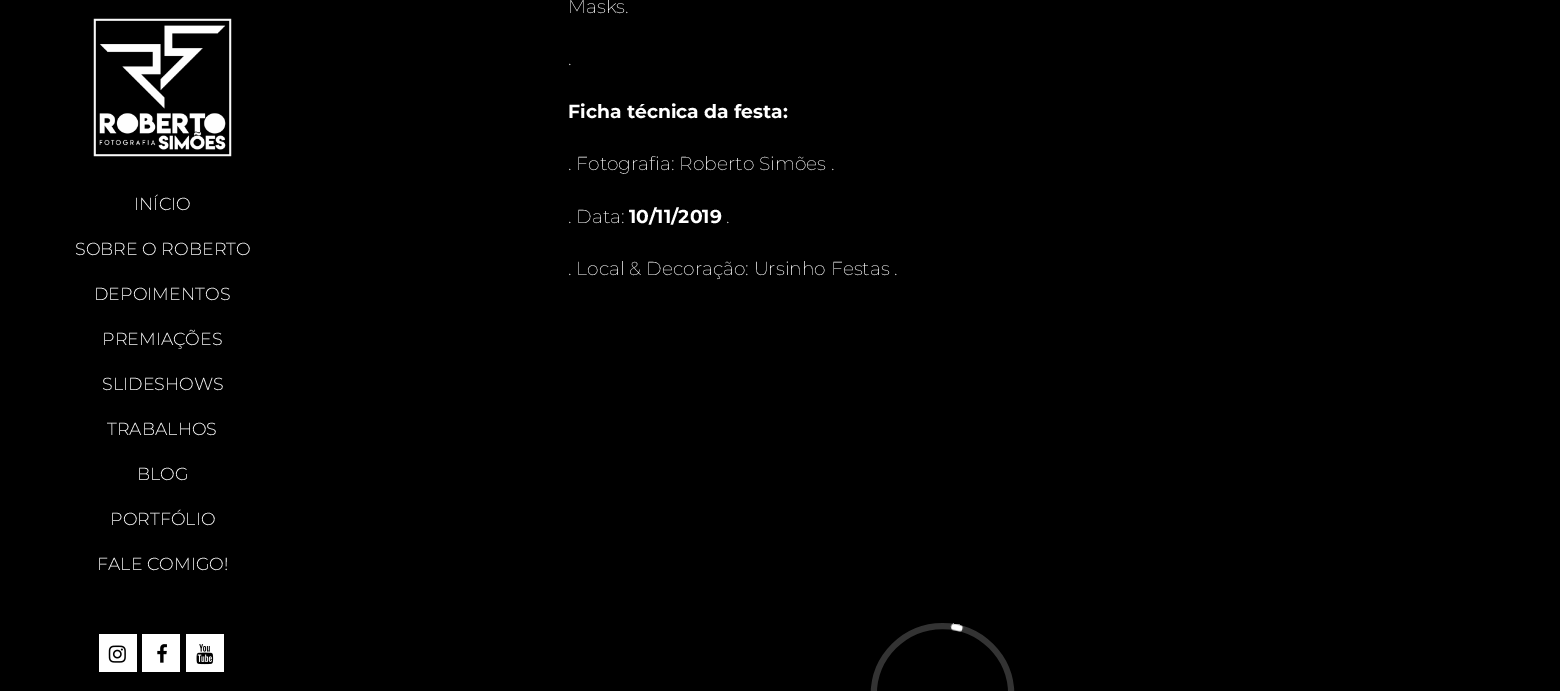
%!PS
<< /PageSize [1560 691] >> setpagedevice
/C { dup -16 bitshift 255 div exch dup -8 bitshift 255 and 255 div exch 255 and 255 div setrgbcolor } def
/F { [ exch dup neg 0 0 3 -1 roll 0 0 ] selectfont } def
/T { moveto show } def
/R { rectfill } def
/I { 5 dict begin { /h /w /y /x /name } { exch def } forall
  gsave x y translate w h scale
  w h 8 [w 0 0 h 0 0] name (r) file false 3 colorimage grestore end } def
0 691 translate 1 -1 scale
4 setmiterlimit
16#000000 C
0 0 1560 691 R
/Montserrat-ExtraLight 18.75 F
16#FFFFFF C
(Masks.) 568 13 T
(.) 568 65 T
/Montserrat-Bold 18.75 F
(Ficha técnica da festa:) 568 118 T
/Montserrat-ExtraLight 18.75 F
(. Fotografia: Roberto Simões .) 568 170 T
(. Data:) 568 223 T
/Montserrat-Bold 18.75 F
(10/11/2019) 629 223 T
/Montserrat-ExtraLight 18.75 F
(.) 726 223 T
(. Local & Decoração: Ursinho Festas .) 568 275 T
(1.rgb) 870 623 145 68 I
(2.rgb) 93 18 139 139 I
/Montserrat-Light 17.5 F
(INÍCIO) 134 210 T
(SOBRE O ROBERTO) 75 255 T
(DEPOIMENTOS) 94 300 T
(PREMIAÇÕES) 102 345 T
(SLIDESHOWS) 102 390 T
(TRABALHOS) 107 435 T
(BLOG) 137 480 T
(PORTFÓLIO) 110 525 T
(FALE COMIGO!) 97 570 T
99 634 38 38 R
(3.rgb) 108 645 18 18 I
142 634 38 38 R
(4.rgb) 157 644 10 19 I
186 634 38 38 R
(5.rgb) 196 644 18 21 I
showpage
